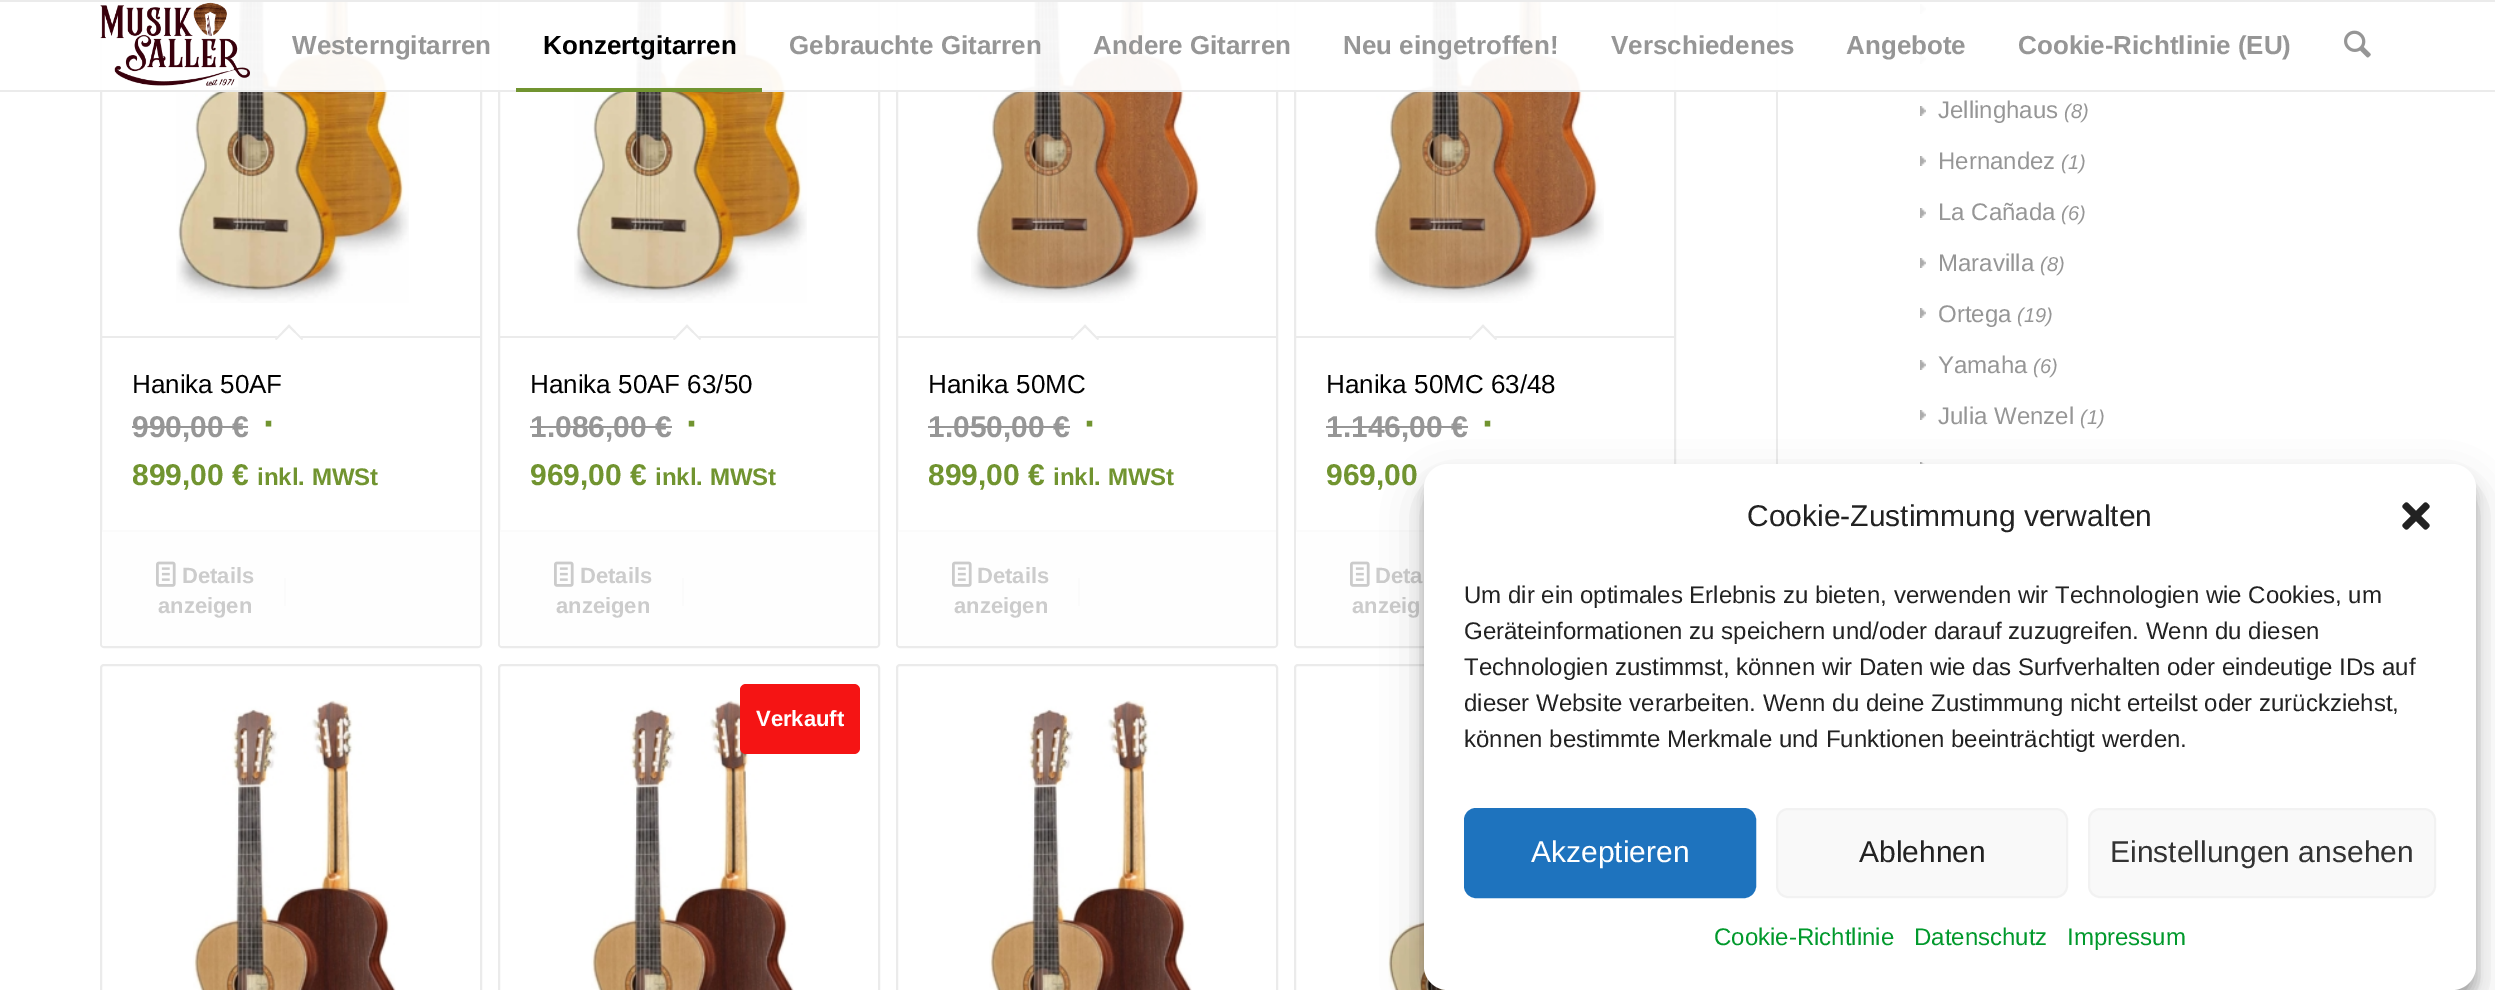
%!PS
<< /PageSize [2495 990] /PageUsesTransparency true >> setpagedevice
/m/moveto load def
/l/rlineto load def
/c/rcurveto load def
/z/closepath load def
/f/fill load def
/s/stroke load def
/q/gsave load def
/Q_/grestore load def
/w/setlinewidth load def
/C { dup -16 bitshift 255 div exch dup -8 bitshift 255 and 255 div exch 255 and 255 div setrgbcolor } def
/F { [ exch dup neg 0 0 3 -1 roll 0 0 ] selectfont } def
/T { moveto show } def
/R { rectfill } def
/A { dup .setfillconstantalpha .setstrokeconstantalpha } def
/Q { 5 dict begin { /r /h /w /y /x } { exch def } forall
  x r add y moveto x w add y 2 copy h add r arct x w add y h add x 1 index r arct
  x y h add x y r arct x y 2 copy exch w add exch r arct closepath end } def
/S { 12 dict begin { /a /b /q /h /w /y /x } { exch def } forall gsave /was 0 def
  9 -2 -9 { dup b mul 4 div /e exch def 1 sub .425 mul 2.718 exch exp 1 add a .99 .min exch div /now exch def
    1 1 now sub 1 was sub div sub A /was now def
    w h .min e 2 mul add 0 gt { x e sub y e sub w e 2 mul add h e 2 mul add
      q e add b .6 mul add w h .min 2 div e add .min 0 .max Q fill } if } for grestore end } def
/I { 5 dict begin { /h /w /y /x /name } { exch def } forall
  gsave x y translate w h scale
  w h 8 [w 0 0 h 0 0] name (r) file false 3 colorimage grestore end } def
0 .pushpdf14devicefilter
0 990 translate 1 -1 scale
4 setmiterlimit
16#FFFFFF C
0 0 2495 990 R
(3.rgb) 1920 4 6 10 I
(3.rgb) 1920 54 6 10 I
16#EBEBEB C
1776 0 2 464 R
2 w
101 -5 380 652 3 Q s
(5.rgb) 176 2 233 301 I
499 -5 380 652 3 Q s
(7.rgb) 574 2 233 301 I
897 -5 380 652 3 Q s
(8.rgb) 971 2 235 301 I
1295 -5 380 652 3 Q s
(9.rgb) 1369 2 235 301 I
0.95 A
16#FFFFFF C
100 2 1826 88 R
1 A
16#EBEBEB C
0 0 2495 2 R
0 90 2495 2 R
(1.rgb) 100 2 150 84 I
/LiberationSans-Bold 26 F
16#969696 C
(Westerngitarren) 292 54 T
16#000000 C
(Konzertgitarren) 543 54 T
16#719430 C
516 88 246 4 R
16#969696 C
(Gebrauchte Gitarren) 789 54 T
(Andere Gitarren) 1093 54 T
(Neu eingetroffen!) 1343 54 T
(Verschiedenes) 1611 54 T
(Angebote) 1846 54 T
(Cookie-Richtlinie \(EU\)) 2018 54 T
(2.rgb) 2344 30 27 28 I
(3.rgb) 1920 106 6 10 I
/LiberationSans-Regular 24 F
(Jellinghaus) 1938 118 T
/LiberationSans-Italic 20 F
(\(8\)) 2064 118 T
(3.rgb) 1920 156 6 10 I
/LiberationSans-Regular 24 F
(Hernandez) 1938 169 T
/LiberationSans-Italic 20 F
(\(1\)) 2061 169 T
(3.rgb) 1920 208 6 10 I
/LiberationSans-Regular 24 F
(La Cañada) 1938 220 T
/LiberationSans-Italic 20 F
(\(6\)) 2061 220 T
(3.rgb) 1920 258 6 10 I
/LiberationSans-Regular 24 F
(Maravilla) 1938 271 T
/LiberationSans-Italic 20 F
(\(8\)) 2040 271 T
(3.rgb) 1920 308 6 10 I
/LiberationSans-Regular 24 F
(Ortega) 1938 322 T
/LiberationSans-Italic 20 F
(\(19\)) 2017 322 T
(3.rgb) 1920 360 6 10 I
/LiberationSans-Regular 24 F
(Yamaha) 1938 373 T
/LiberationSans-Italic 20 F
(\(6\)) 2033 373 T
(3.rgb) 1920 410 6 10 I
/LiberationSans-Regular 24 F
(Julia Wenzel) 1938 424 T
/LiberationSans-Italic 20 F
(\(1\)) 2080 424 T
(4.rgb) 1920 462 5 2 I
16#EBEBEB C
102 336 378 2 R
16#FFFFFF C
289 324.5 m 14 14.5 l -14 14 l -14 -14 l z f
16#EBEBEB C
289 324.5 m 14 14.5 l -1 1 l -14.5 -14 l z f
289 324.5 m 1.5 1.5 l -14 14 l -1.5 -1 l z f
/LiberationSans-Regular 26 F
16#000000 C
(Hanika 50AF) 132 393 T
/LiberationSans-Bold 30 F
16#969696 C
(990,00 €) 132 437 T
132 426 116 2 R
/LiberationSans-Bold 40 F
16#719430 C
(∙) 263 437 T
/LiberationSans-Bold 30 F
(899,00 €) 132 485 T
/LiberationSans-Bold 24 F
(inkl. MWSt) 257 485 T
16#FEFEFE C
102 530 m 378 0 l 0 114 l 0 1 -1 2 -2 2 c -374 0 l -1 0 -2 -1 -2 -2 c z f
16#FBFBFB C
102 530 378 2 R
(6.rgb) 156 561 20 26 I
/LiberationSans-Bold 22 F
16#CCCCCC C
(Details) 182 583 T
(anzeigen) 158 613 T
16#FBFBFB C
284 578 2 28 R
16#EBEBEB C
500 336 378 2 R
16#FFFFFF C
687 324.5 m 14 14.5 l -14 14 l -14 -14 l z f
16#EBEBEB C
687 324.5 m 14 14.5 l -1 1 l -14.5 -14 l z f
687 324.5 m 1.5 1.5 l -14 14 l -1.5 -1 l z f
/LiberationSans-Regular 26 F
16#000000 C
(Hanika 50AF 63/50) 530 393 T
/LiberationSans-Bold 30 F
16#969696 C
(1.086,00) 530 437 T
530 426 126 2 R
(€) 655 437 T
656 426 16 2 R
/LiberationSans-Bold 40 F
16#719430 C
(∙) 686 437 T
/LiberationSans-Bold 30 F
(969,00 €) 530 485 T
/LiberationSans-Bold 24 F
(inkl. MWSt) 655 485 T
16#FEFEFE C
500 530 m 378 0 l 0 114 l 0 1 -1 2 -2 2 c -374 0 l -1 0 -2 -1 -2 -2 c z f
16#FBFBFB C
500 530 378 2 R
(6.rgb) 554 561 20 26 I
/LiberationSans-Bold 22 F
16#CCCCCC C
(Details) 580 583 T
(anzeigen) 556 613 T
16#FBFBFB C
682 578 2 28 R
16#EBEBEB C
898 336 378 2 R
16#FFFFFF C
1085 324.5 m 14 14.5 l -14 14 l -14 -14 l z f
16#EBEBEB C
1085 324.5 m 14 14.5 l -1.5 1 l -14 -14 l z f
1085 324.5 m 1.5 1.5 l -14.5 14 l -1 -1 l z f
/LiberationSans-Regular 26 F
16#000000 C
(Hanika 50MC) 928 393 T
/LiberationSans-Bold 30 F
16#969696 C
(1.050,00) 928 437 T
928 426 126 2 R
(€) 1053 437 T
1054 426 16 2 R
/LiberationSans-Bold 40 F
16#719430 C
(∙) 1084 437 T
/LiberationSans-Bold 30 F
(899,00 €) 928 485 T
/LiberationSans-Bold 24 F
(inkl. MWSt) 1053 485 T
16#FEFEFE C
898 530 m 378 0 l 0 114 l 0 1 -1 2 -2 2 c -374 0 l -1 0 -2 -1 -2 -2 c z f
16#FBFBFB C
898 530 378 2 R
(6.rgb) 952 561 20 26 I
/LiberationSans-Bold 22 F
16#CCCCCC C
(Details) 977 583 T
(anzeigen) 954 613 T
16#FBFBFB C
1078 578 2 28 R
16#EBEBEB C
1296 336 378 2 R
16#FFFFFF C
1483 324.5 m 14 14.5 l -14 14 l -14 -14 l z f
16#EBEBEB C
1483 324.5 m 14 14.5 l -1.5 1 l -14 -14 l z f
1483 324.5 m 1.5 1.5 l -14.5 14 l -1 -1 l z f
/LiberationSans-Regular 26 F
16#000000 C
(Hanika 50MC 63/48) 1326 393 T
/LiberationSans-Bold 30 F
16#969696 C
(1.146,00 €) 1326 437 T
1326 426 142 2 R
/LiberationSans-Bold 40 F
16#719430 C
(∙) 1482 437 T
/LiberationSans-Bold 30 F
(969,00) 1326 485 T
16#FEFEFE C
1296 530 m 378 0 l 0 114 l 0 1 -1 2 -2 2 c -374 0 l -1 0 -2 -1 -2 -2 c z f
16#FBFBFB C
1296 530 128 2 R
(6.rgb) 1350 561 20 26 I
/LiberationSans-Bold 22 F
16#CCCCCC C
(Deta) 1375 583 T
(anzeig) 1352 613 T
16#EBEBEB C
101 665 380 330 3 Q s
(10.rgb) 193 700 203 290 I
499 665 380 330 3 Q s
(11.rgb) 591 700 203 290 I
16#F51414 C
740 684 120 70 6 Q f
16#FFFFFF C
(Verkauft) 756 726 T
16#EBEBEB C
897 665 380 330 3 Q s
(12.rgb) 989 700 203 290 I
1295 665 380 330 3 Q s
(13.rgb) 1388 699 60 291 I
16#000000 C
1424 476 1052 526 24 6 .23 S
1424 484 1052 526 24 20 .19 S
16#FFFFFF C
1424 464 1052 526 24 Q f
/LiberationSans-Regular 30 F
16#222222 C
(Cookie-Zustimmung verwalten) 1747 526 T
(14.rgb) 2402 502 28 28 I
/LiberationSans-Regular 24 F
(Um dir ein optimales Erlebnis zu bieten, verwenden wir Technologien wie Cookies, um) 1464 603 T
(Geräteinformationen zu speichern und/oder darauf zuzugreifen. Wenn du diesen) 1464 639 T
(Technologien zustimmst, können wir Daten wie das Surfverhalten oder eindeutige IDs auf) 1464 675 T
(dieser Website verarbeiten. Wenn du deine Zustimmung nicht erteilst oder zurückziehst,) 1464 711 T
(können bestimmte Merkmale und Funktionen beeinträchtigt werden.) 1464 747 T
16#1E73BE C
1465 809 290 88 11 Q q f Q_
s
/LiberationSans-Regular 30 F
16#FFFFFF C
(Akzeptieren) 1531 862 T
16#F9F9F9 C
1777 809 290 88 11 Q q f Q_
16#F2F2F2 C
s
16#222222 C
(Ablehnen) 1859 862 T
16#F9F9F9 C
2089 809 346 88 11 Q q f Q_
16#F2F2F2 C
s
16#333333 C
(Einstellungen ansehen) 2110 862 T
/LiberationSans-Regular 24 F
16#01992C C
(Cookie-Richtlinie) 1714 945 T
(Datenschutz) 1914 945 T
(Impressum) 2067 945 T
.poppdf14devicefilter showpage
